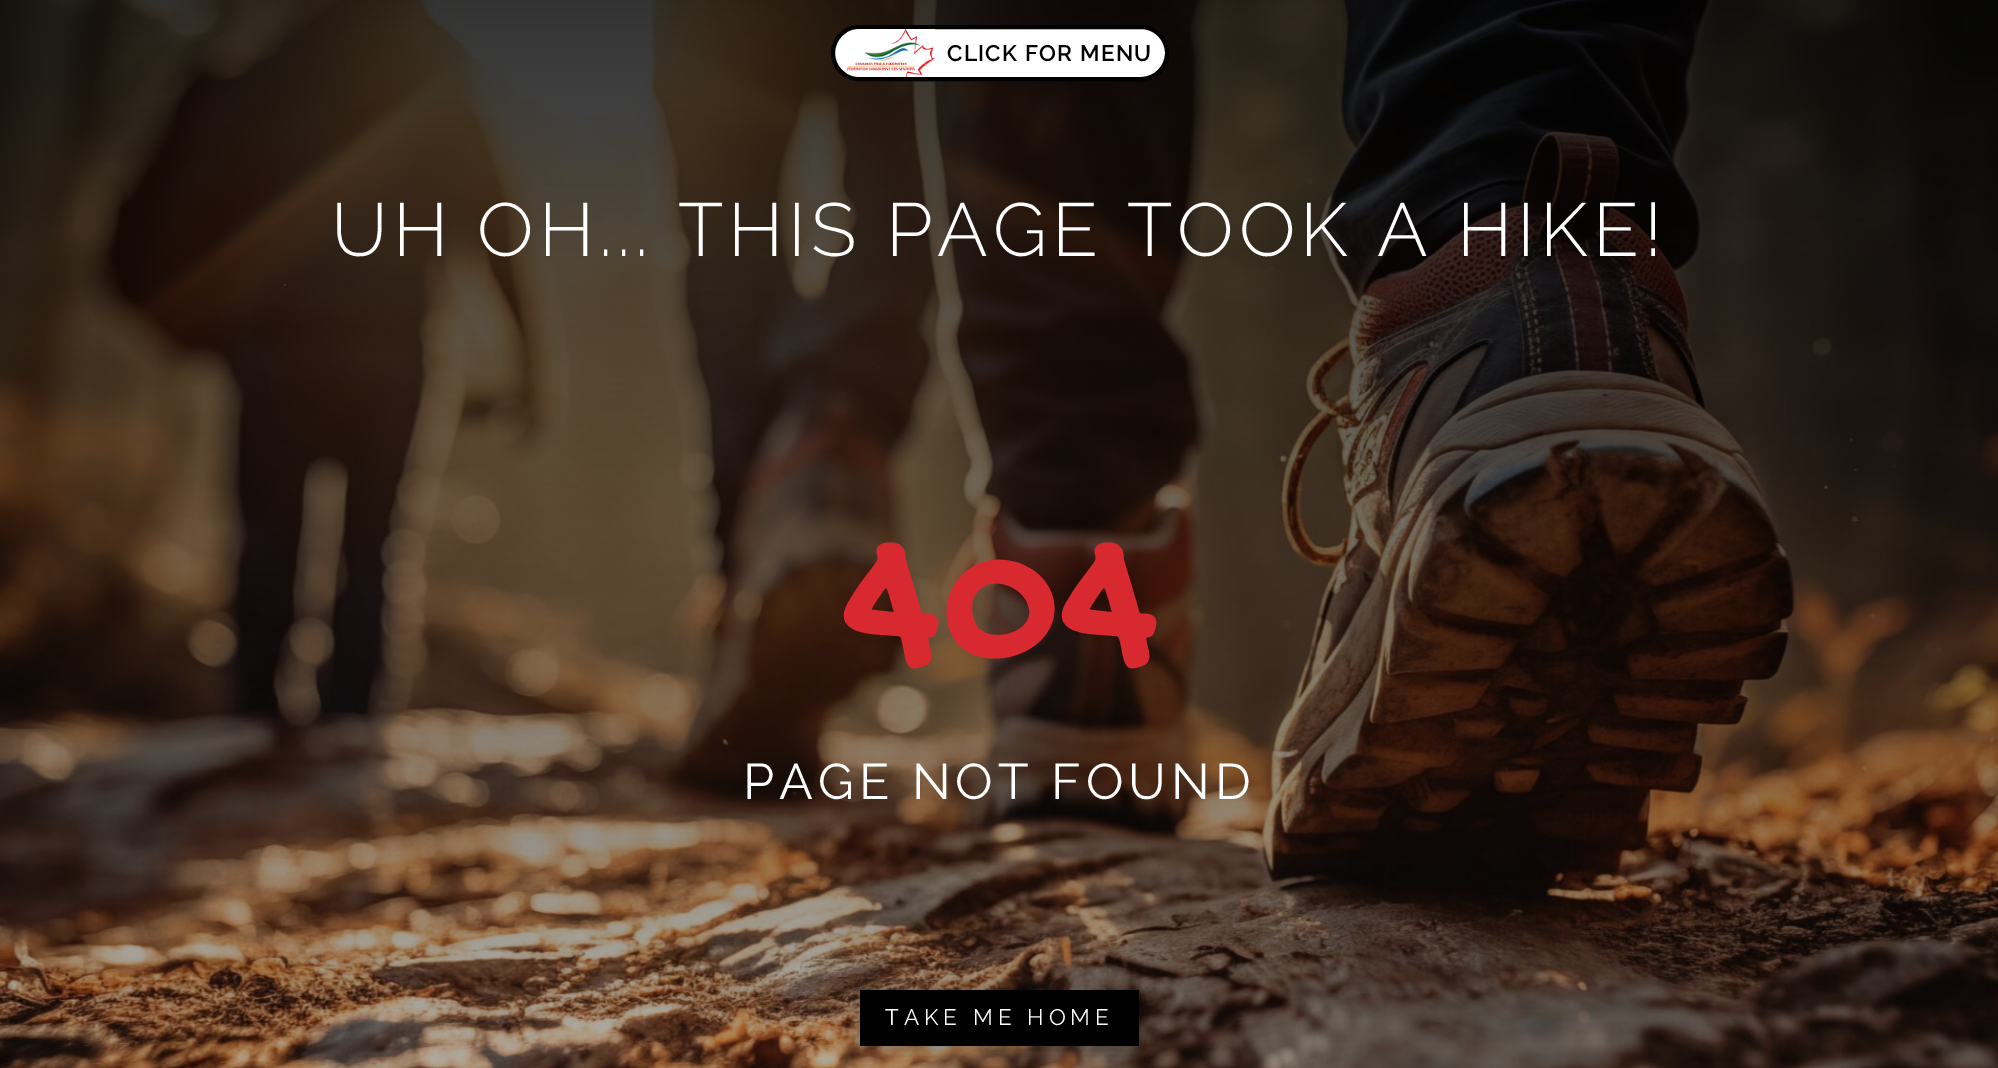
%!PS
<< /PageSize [1998 1068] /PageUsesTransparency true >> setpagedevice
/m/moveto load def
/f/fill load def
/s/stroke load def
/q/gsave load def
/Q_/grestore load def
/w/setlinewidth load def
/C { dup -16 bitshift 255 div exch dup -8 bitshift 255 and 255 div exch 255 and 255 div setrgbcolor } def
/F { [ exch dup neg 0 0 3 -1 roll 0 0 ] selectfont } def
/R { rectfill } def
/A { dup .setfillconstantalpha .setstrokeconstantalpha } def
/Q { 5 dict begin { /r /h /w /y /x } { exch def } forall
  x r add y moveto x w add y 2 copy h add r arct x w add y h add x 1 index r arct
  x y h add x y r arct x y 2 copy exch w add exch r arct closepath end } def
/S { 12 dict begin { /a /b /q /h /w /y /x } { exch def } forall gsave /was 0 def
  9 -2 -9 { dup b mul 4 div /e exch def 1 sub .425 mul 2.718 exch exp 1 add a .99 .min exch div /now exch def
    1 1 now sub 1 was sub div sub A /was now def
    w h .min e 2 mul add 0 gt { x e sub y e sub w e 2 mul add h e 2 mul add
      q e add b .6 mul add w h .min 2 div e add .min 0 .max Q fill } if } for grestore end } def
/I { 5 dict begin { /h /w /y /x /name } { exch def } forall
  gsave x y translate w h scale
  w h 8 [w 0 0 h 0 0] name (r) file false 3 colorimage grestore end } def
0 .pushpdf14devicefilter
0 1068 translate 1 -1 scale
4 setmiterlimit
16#FFFFFF C
0 0 1998 1068 R
(2.rgb) 0 0 1998 496 I
833 27 334 52 26 Q q f Q_
16#000000 C
4 w
s
(1.rgb) 847 29 88 49 I
/Raleway-SemiBold 22.5 F
947 61 m 1.25 0 (CLICK FOR MENU) ashow
/Raleway-Light 75 F
16#FFFFFF C
331 256 m 5 0 (UH OH... THIS PAGE TOOK A HIKE!) ashow
(3.rgb) 0 496 1998 572 I
/GochiHand-Bold 200 F
16#D82931 C
841 654 m 5 0 (404) ashow
/Raleway-Regular 50 F
16#FFFFFF C
743 799 m 5 0 (PAGE NOT FOUND) ashow
16#000000 C
860 993 279 56 0 11 .3 S
860 990 279 56 R
/Raleway-Regular 22.5 F
16#FFFFFF C
885 1025 m 5 0 (TAKE ME HOME) ashow
.poppdf14devicefilter showpage
